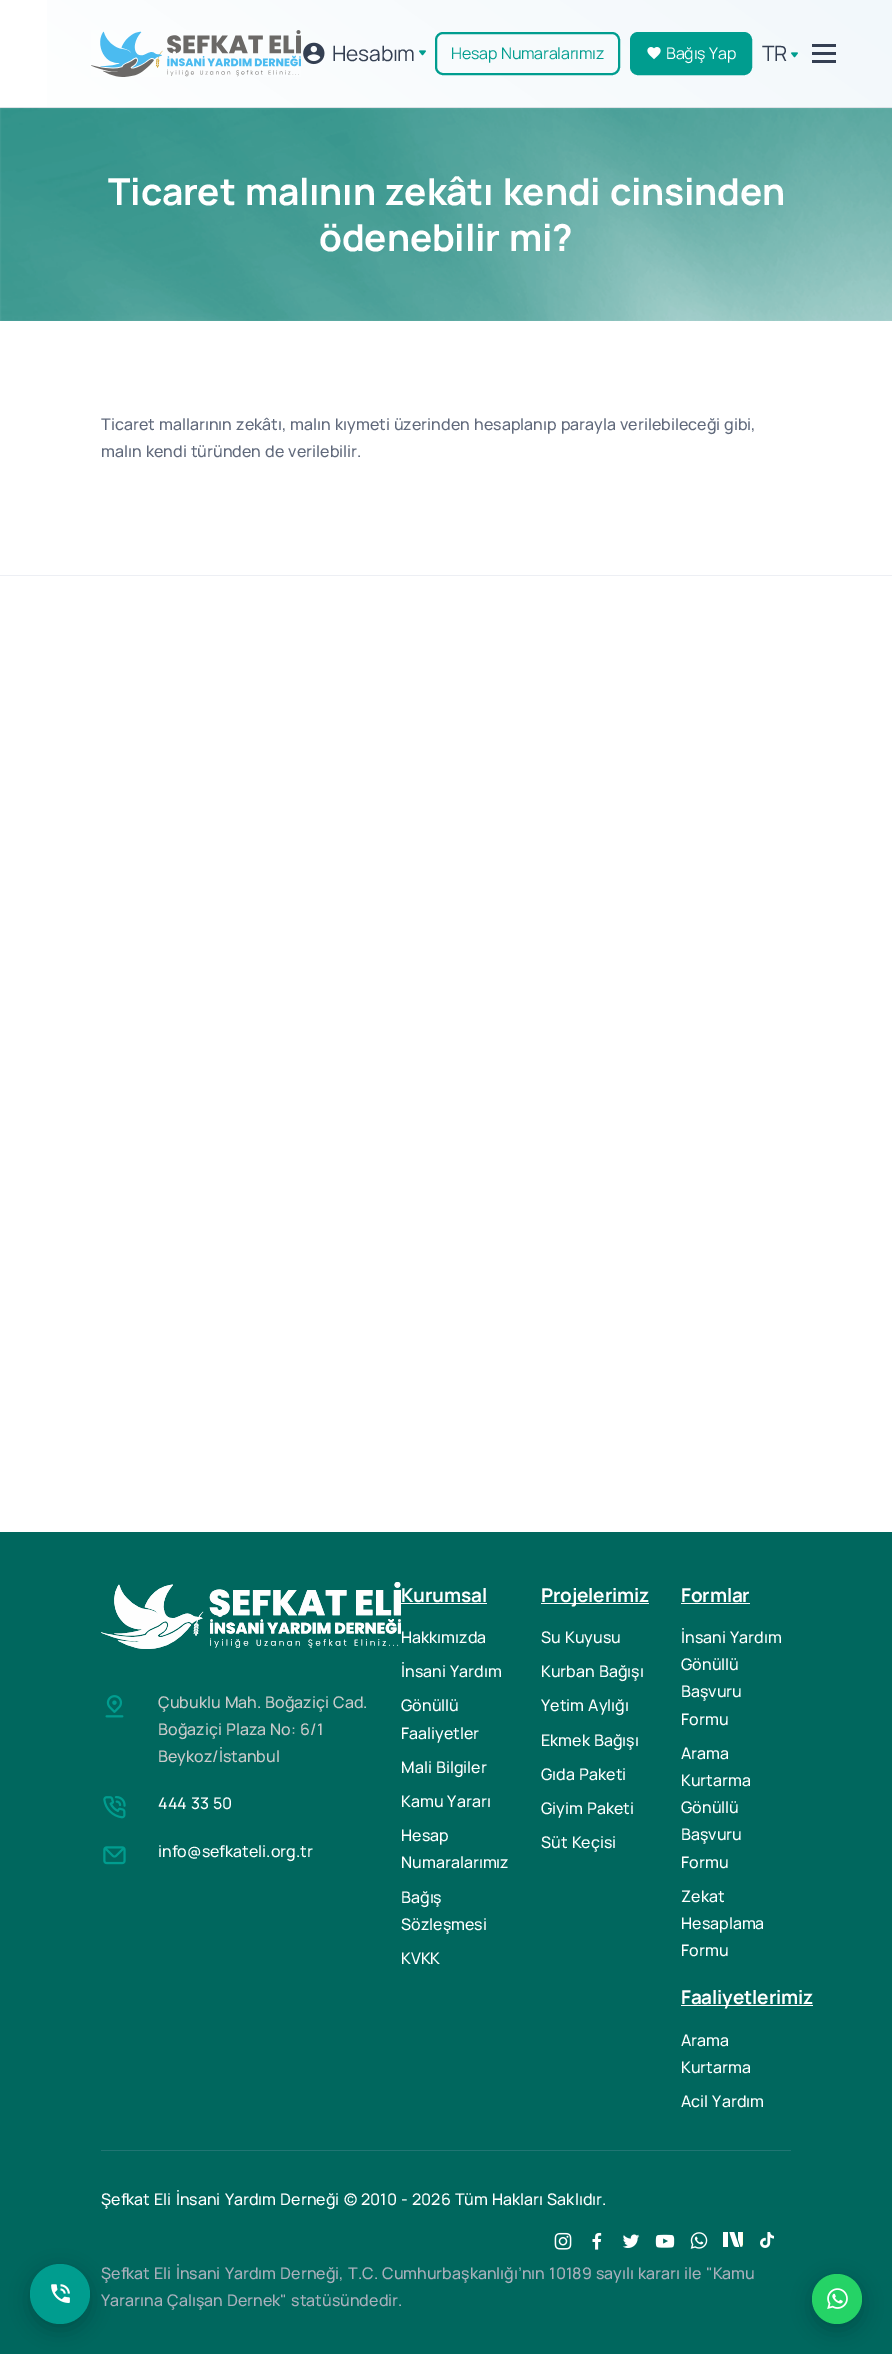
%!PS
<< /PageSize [892 2354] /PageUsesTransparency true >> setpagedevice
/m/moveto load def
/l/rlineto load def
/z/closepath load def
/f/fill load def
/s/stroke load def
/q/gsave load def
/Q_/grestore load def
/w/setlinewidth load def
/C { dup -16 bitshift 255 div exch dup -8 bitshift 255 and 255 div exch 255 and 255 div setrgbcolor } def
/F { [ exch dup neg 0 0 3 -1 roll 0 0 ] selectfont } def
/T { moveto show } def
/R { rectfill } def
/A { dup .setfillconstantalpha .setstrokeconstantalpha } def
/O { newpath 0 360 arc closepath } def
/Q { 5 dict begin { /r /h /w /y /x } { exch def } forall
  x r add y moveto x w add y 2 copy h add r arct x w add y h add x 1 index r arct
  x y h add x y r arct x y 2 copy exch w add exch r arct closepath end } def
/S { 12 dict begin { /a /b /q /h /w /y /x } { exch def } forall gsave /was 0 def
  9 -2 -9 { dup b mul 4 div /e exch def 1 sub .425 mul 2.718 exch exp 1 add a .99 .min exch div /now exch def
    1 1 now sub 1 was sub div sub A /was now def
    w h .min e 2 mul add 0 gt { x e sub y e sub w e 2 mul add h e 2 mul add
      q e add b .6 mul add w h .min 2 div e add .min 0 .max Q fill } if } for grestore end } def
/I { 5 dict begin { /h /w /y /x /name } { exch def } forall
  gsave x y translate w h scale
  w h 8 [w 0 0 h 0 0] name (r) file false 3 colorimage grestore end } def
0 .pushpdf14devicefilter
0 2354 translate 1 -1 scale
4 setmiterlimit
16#FFFFFF C
0 0 892 2354 R
q 47 0 m 845 0 l 0 107 l -845 0 l z clip newpath
<< /ShadingType 2 /ColorSpace /DeviceRGB /Coords [618 -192 274 300] /Extend [true true] /Function << /FunctionType 2 /Domain [0 1] /C0 [.949 .973 .984] /C1 [1 1 1] /N 1 >> >> shfill Q_
16#DEE2E6 C
0 107 892 1 R
(1.rgb) 91 30 210 47 I
(2.rgb) 303 42 22 23 I
/Manrope-Regular 21 F
16#343F52 C
332 61 m -.2 0 (Hesabım) ashow
(3.rgb) 419 50 7 6 I
16#009D8F C
2 w
436 33 183 41 7 Q s
/Manrope-Regular 16 F
451 59 m 1 0 32 -.2 0 (Hesap Numaralarımız) awidthshow
631 33 120 41 7 Q q f Q_
s
(4.rgb) 647 47 14 13 I
16#FFFFFF C
666 59 m 1 0 32 -.2 0 (Bağış Yap) awidthshow
/Manrope-Regular 21 F
16#343F52 C
762 61 m -.2 0 (TR) ashow
(5.rgb) 791 52 7 6 I
812 44 24 3 R
812 52 24 3 R
812 60 24 3 R
(6.rgb) 0 108 892 213 I
/Manrope-Bold 37.1 F
16#FFFFFF C
108 205 m 2 0 32 -.2 0 (Ticaret malının zekâtı kendi cinsinden) awidthshow
319 251 m 2 0 32 -.2 0 (ödenebilir mi?) awidthshow
16#EDEFF4 C
0 575 892 1 R
/Manrope-Medium 16 F
16#60697B C
101 430 m 1 0 32 (Ticaret mallarının zekâtı, malın kıymeti üzerinden hesaplanıp parayla verilebileceği gibi,) widthshow
101 457 m 1 0 32 (malın kendi türünden de verilebilir.) widthshow
16#00675E C
0 1532 892 822 R
16#000000 C
30 2270 60 60 30 10 .2 S
16#009D8F C
60 2294 30 O f
(7.rgb) 51 2284 19 19 I
(8.rgb) 101 1582 300 67 I
(9.rgb) 105 1695 19 23 I
16#CACACA C
158 1708 m 1 0 32 (Çubuklu Mah. Boğaziçi Cad.) widthshow
158 1735 m 1 0 32 (Boğaziçi Plaza No: 6/1) widthshow
(Beykoz/İstanbul) 158 1762 T
(10.rgb) 103 1796 23 23 I
16#FFFFFF C
158 1809 m 1 0 32 (444 33 50) widthshow
(11.rgb) 103 1846 23 19 I
(info@sefkateli.org.tr) 158 1857 T
/Manrope-Bold 19 F
401 1602 m -.2 0 (Kurumsal) ashow
401 1603 86 1 R
/Manrope-Medium 16 F
(Hakkımızda) 401 1643 T
401 1677 m 1 0 32 (İnsani Yardım) widthshow
(Gönüllü) 401 1711 T
(Faaliyetler) 401 1739 T
401 1773 m 1 0 32 (Mali Bilgiler) widthshow
401 1807 m 1 0 32 (Kamu Yararı) widthshow
(Hesap) 401 1841 T
(Numaralarımız) 401 1868 T
(Bağış) 401 1903 T
(Sözleşmesi) 401 1930 T
(KVKK) 401 1964 T
541 1603 108 1 R
/Manrope-Bold 19 F
541 1602 m -.2 0 (Projelerimiz) ashow
/Manrope-Medium 16 F
541 1643 m 1 0 32 (Su Kuyusu) widthshow
541 1677 m 1 0 32 (Kurban Bağışı) widthshow
541 1711 m 1 0 32 (Yetim Aylığı) widthshow
541 1746 m 1 0 32 (Ekmek Bağışı) widthshow
541 1780 m 1 0 32 (Gıda Paketi) widthshow
541 1814 m 1 0 32 (Giyim Paketi) widthshow
541 1848 m 1 0 32 (Süt Keçisi) widthshow
/Manrope-Bold 19 F
681 1602 m -.2 0 (Formlar) ashow
681 1603 69 1 R
/Manrope-Medium 16 F
681 1643 m 1 0 32 (İnsani Yardım) widthshow
(Gönüllü) 681 1670 T
(Başvuru) 681 1697 T
(Formu) 681 1725 T
(Arama) 681 1759 T
(Kurtarma) 681 1786 T
(Gönüllü) 681 1813 T
(Başvuru) 681 1840 T
(Formu) 681 1868 T
(Zekat) 681 1902 T
(Hesaplama) 681 1929 T
(Formu) 681 1956 T
681 2005 132 1 R
/Manrope-Bold 19 F
681 2004 m -.2 0 (Faaliyetlerimiz) ashow
/Manrope-Medium 16 F
(Arama) 681 2046 T
(Kurtarma) 681 2073 T
681 2107 m 1 0 32 (Acil Yardım) widthshow
16#217573 C
101 2150 690 1 R
16#FFFFFF C
101 2205 m 1 0 32 (Şefkat Eli İnsani Yardım Derneği © 2010 - 2026 Tüm Hakları Saklıdır.) widthshow
(12.rgb) 554 2232 18 18 I
(13.rgb) 592 2232 10 18 I
(14.rgb) 622 2234 18 14 I
(15.rgb) 655 2234 20 14 I
(16.rgb) 690 2232 18 17 I
(17.rgb) 723 2232 20 15 I
(18.rgb) 760 2232 14 16 I
16#AAB0BC C
101 2279 m 1 0 32 (Şefkat Eli İnsani Yardım Derneği, T.C. Cumhurbaşkanlığı’nın 10189 sayılı kararı ile "Kamu) widthshow
101 2306 m 1 0 32 (Yararına Çalışan Dernek" statüsündedir.) widthshow
16#000000 C
812 2280 50 50 25 10 .2 S
16#25D366 C
837 2299 25 O f
(19.rgb) 827 2288 21 21 I
.poppdf14devicefilter showpage
